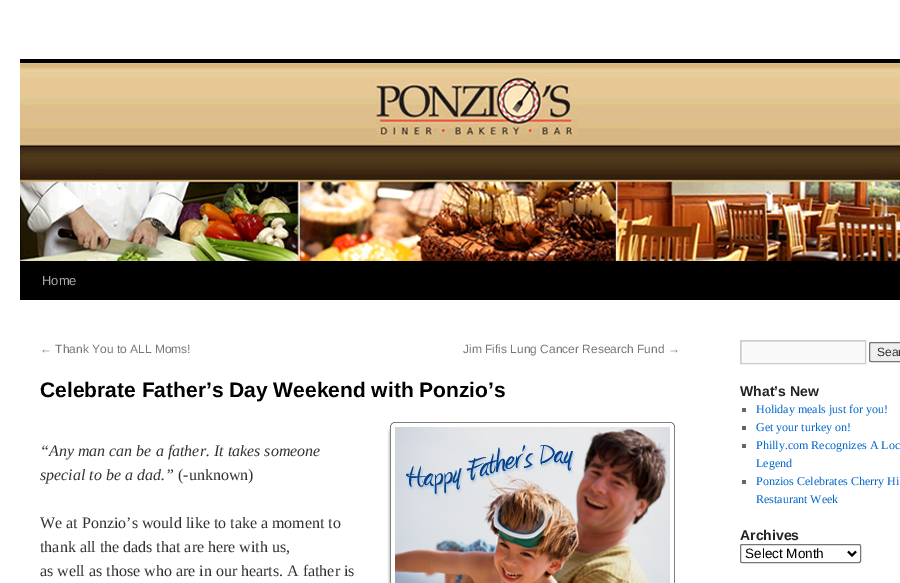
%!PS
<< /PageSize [900 583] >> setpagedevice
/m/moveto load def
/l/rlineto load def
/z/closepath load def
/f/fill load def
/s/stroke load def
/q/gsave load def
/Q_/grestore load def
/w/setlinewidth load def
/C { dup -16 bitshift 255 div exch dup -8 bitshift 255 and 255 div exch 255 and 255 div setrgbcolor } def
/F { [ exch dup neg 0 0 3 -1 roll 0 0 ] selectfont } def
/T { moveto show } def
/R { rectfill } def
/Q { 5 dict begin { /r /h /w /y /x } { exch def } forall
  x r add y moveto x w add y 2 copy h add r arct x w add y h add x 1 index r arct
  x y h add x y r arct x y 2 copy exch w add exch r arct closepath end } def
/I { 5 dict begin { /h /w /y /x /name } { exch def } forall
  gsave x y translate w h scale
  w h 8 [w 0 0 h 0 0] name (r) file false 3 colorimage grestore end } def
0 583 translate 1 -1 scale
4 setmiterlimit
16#FFFFFF C
0 0 900 583 R
16#000000 C
20 59 880 4 R
20 261 880 39 R
(1.rgb) 20 63 880 198 I
/LiberationSans-Regular 13 F
16#AAAAAA C
(Home) 42 285 T
/LiberationSans-Regular 12 F
16#777777 C
(← Thank You to ALL Moms!) 40 353 T
(Jim Fifis Lung Cancer Research Fund →) 463 353 T
/LiberationSans-Bold 21 F
16#000000 C
(Celebrate Father’s Day Weekend with Ponzio’s) 40 397 T
/LiberationSerif-Italic 16 F
16#333333 C
(“Any man can be a father. It takes someone) 40 456 T
(special to be a dad.”) 40 480 T
/LiberationSerif-Regular 16 F
(\(-unknown\)) 178 480 T
(2.rgb) 387 422 288 161 I
(We at Ponzio’s would like to take a moment to) 40 528 T
(thank all the dads that are here with us,) 40 552 T
(as well as those who are in our hearts. A father is) 40 576 T
16#F9F9F9 C
742 342 123 21 R
q
741 341 124 22 rectclip
16#E0E0E0 C
642 242 m 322 0 l 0 220 l -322 0 l z 742 342 m 124 0 l 0 22 l -124 0 l z eofill
Q_
16#CCCCCC C
740.5 340.5 125 23 rectstroke
16#EFEFEF C
869.5 342.5 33 19 1.5 Q q f Q_
16#767676 C
s
/LiberationSans-Regular 12 F
16#333333 C
(Sear) 877 356 T
/LiberationSans-Bold 14 F
16#222222 C
(What’s New) 740 396 T
16#666666 C
742 408 4 4 R
/LiberationSerif-Regular 12 F
16#0066CC C
(Holiday meals just for you!) 756 413 T
16#666666 C
742 426 4 4 R
16#0066CC C
(Get your turkey on!) 756 431 T
16#666666 C
742 444 4 4 R
16#0066CC C
(Philly.com Recognizes A Loc) 756 449 T
(Legend) 756 467 T
16#666666 C
742 480 4 4 R
16#0066CC C
(Ponzios Celebrates Cherry Hi) 756 485 T
(Restaurant Week) 756 503 T
/LiberationSans-Bold 14 F
16#222222 C
(Archives) 740 540 T
16#767676 C
740.5 544.5 120 18 1.5 Q s
16#000000 C
2 w
848 551.5 m 4 4 l 4 -4 l s
/LiberationSans-Regular 13.5 F
(Select Month) 745 558 T
showpage
